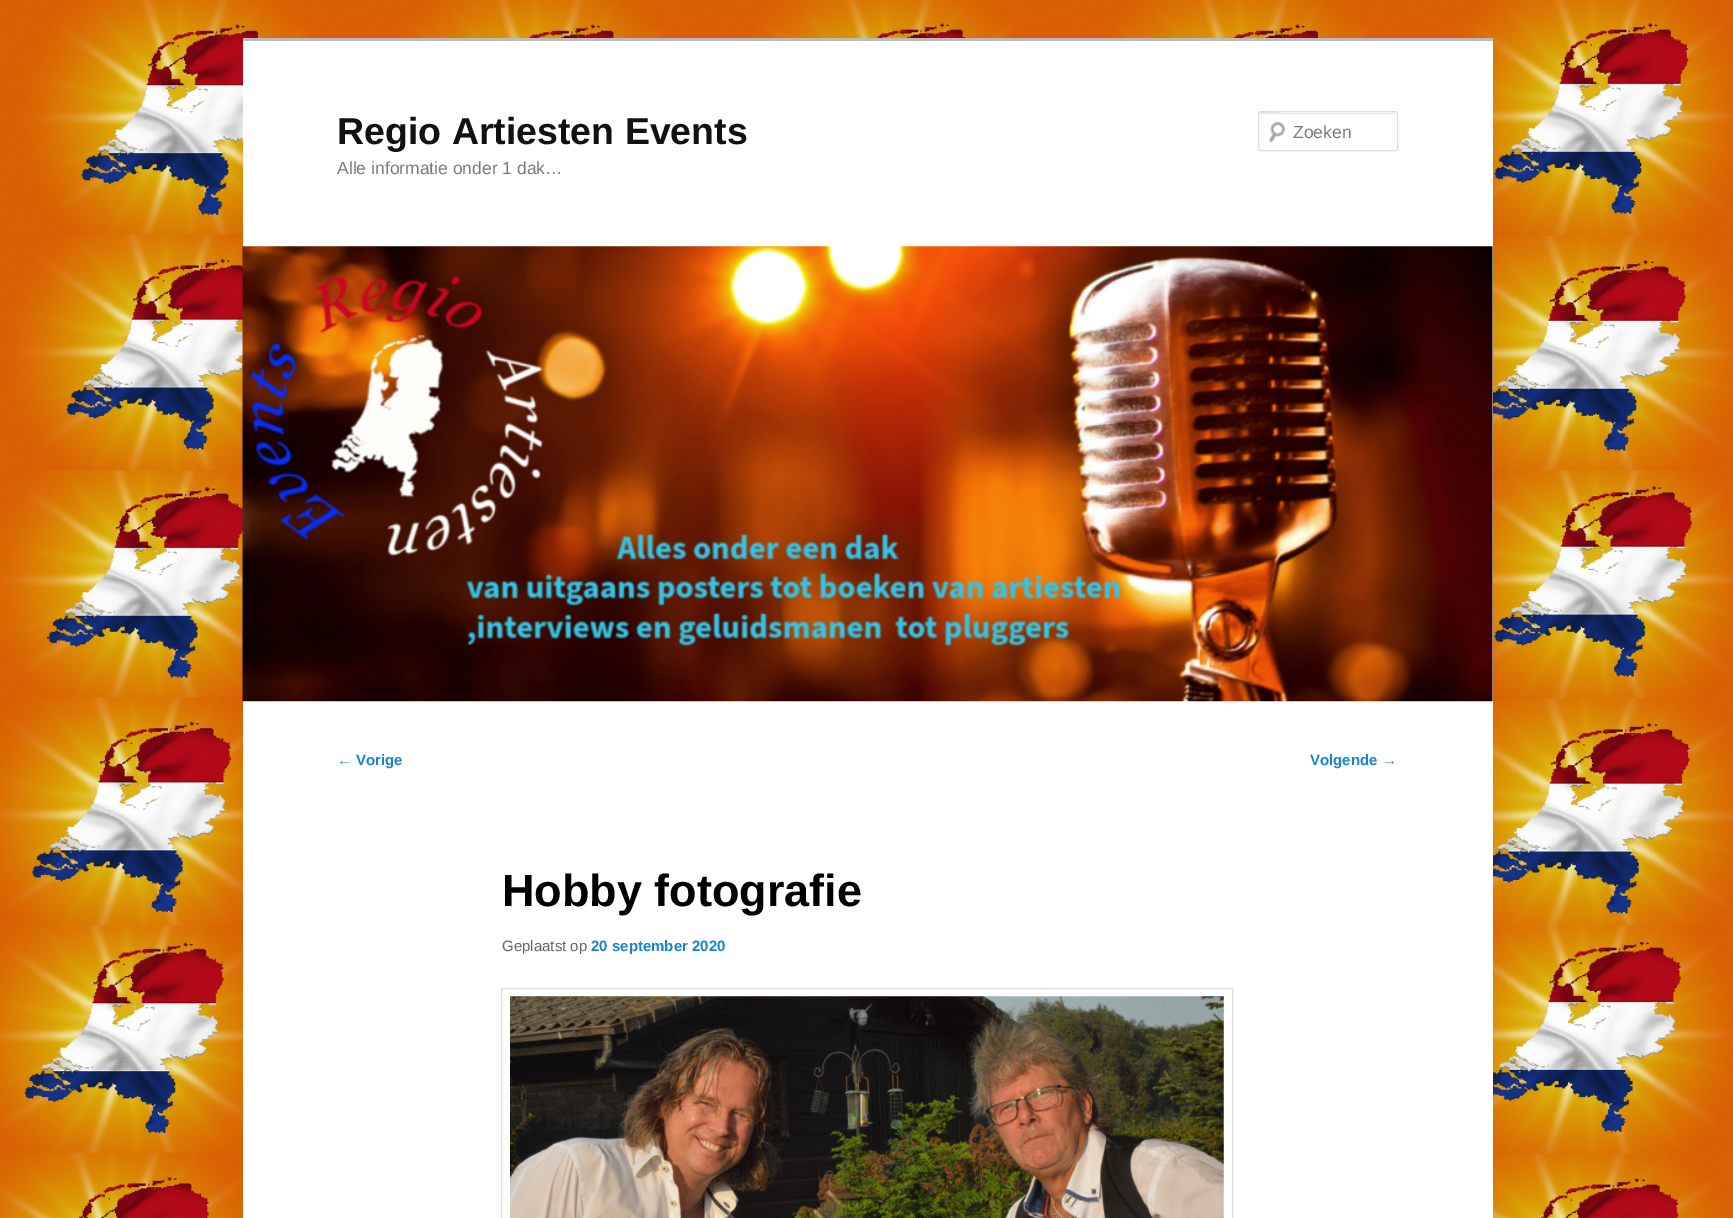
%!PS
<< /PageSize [1733 1218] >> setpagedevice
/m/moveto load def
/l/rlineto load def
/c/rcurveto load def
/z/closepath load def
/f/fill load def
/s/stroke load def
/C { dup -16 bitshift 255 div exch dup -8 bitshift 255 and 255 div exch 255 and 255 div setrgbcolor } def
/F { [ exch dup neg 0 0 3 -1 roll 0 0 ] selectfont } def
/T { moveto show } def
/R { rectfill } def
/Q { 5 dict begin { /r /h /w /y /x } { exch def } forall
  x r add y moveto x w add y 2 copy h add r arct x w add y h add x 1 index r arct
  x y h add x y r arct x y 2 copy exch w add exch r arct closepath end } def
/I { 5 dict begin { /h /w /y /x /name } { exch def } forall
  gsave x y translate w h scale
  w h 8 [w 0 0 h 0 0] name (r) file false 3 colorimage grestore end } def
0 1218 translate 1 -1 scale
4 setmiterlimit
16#FFFFFF C
0 0 1733 1218 R
(1.rgb) 0 0 1733 1218 I
243 41 1250 1177 R
16#BBBBBB C
243 38 1250 3 R
/LiberationSans-Bold 37.5 F
16#111111 C
(Regio Artiesten Events) 337 144 T
/LiberationSans-Regular 17.5 F
16#7A7A7A C
(Alle informatie onder 1 dak…) 337 174 T
(2.rgb) 1268 121 18 22 I
16#E6E6E6 C
1260 114 m 135 0 l 1 0 1 0 1 1 c 0 -2 l -114 0 l 0 0 -23 -6 -23 2 c 0 -1 0 -1 1 -1 c z f
16#DDDDDD C
1258.5 111.5 139 39 2 Q s
16#7A7A7A C
(Zoeken) 1293 138 T
(3.rgb) 242 246 1251 456 I
/LiberationSans-Regular 15 F
16#1982D1 C
(←) 337 765 T
/LiberationSans-Bold 15 F
(Vorige) 356 765 T
(Volgende) 1310 765 T
/LiberationSans-Regular 15 F
(→) 1382 765 T
/LiberationSans-Bold 45 F
16#000000 C
(Hobby fotografie) 502 906 T
/LiberationSans-Regular 15 F
16#666666 C
(Geplaatst op) 502 951 T
/LiberationSans-Bold 15 F
16#1982D1 C
(20 september 2020) 591 951 T
16#DDDDDD C
501.5 988.5 731 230 rectstroke
(4.rgb) 510 996 714 222 I
showpage
